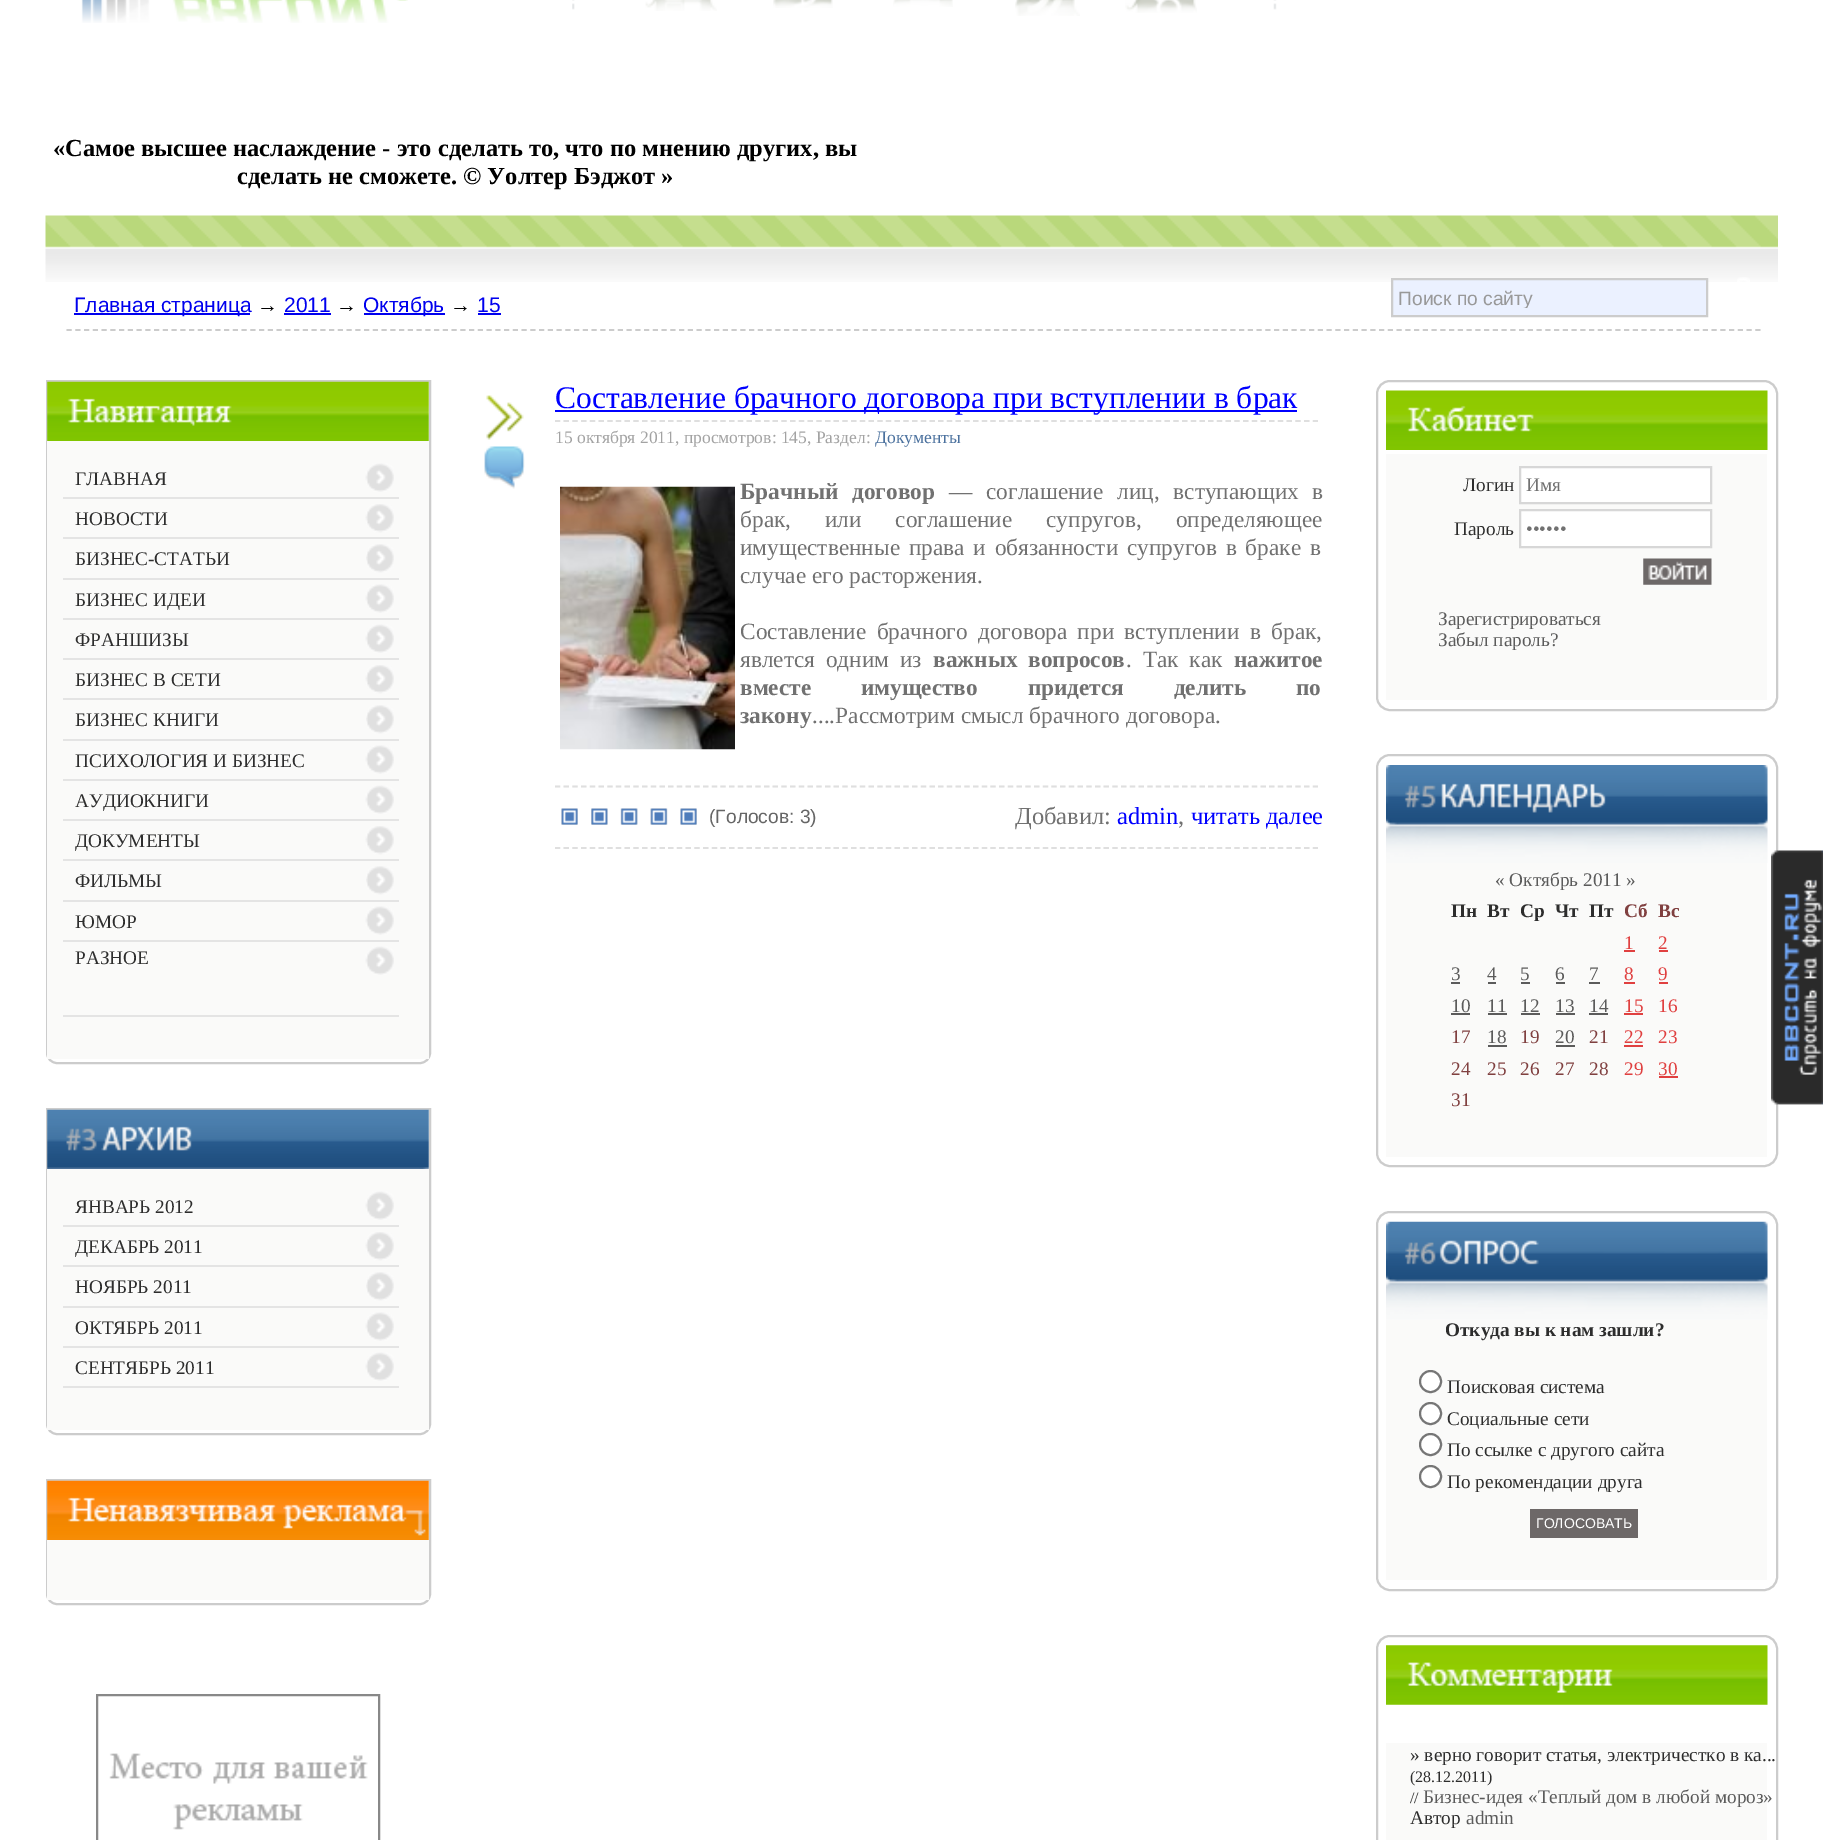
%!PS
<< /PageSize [1823 1840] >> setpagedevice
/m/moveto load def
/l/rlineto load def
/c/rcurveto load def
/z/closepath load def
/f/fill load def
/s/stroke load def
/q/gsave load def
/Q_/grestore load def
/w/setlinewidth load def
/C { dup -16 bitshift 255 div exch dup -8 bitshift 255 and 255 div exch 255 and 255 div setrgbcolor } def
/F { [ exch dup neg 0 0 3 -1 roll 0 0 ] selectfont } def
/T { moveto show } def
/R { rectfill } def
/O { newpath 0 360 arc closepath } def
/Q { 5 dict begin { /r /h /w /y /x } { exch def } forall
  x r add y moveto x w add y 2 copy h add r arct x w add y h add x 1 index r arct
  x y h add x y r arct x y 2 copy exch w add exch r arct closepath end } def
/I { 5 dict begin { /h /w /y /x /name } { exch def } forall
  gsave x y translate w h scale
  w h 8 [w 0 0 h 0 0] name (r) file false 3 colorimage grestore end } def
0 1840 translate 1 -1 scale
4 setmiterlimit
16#FFFFFF C
0 0 1823 1840 R
(1.rgb) 81 0 327 23 I
(2.rgb) 572 0 3 10 I
(3.rgb) 645 0 72 11 I
(4.rgb) 773 0 60 8 I
(5.rgb) 893 0 60 7 I
(6.rgb) 1015 0 65 16 I
(7.rgb) 1125 0 72 13 I
(8.rgb) 1273 0 4 10 I
/LiberationSerif-Bold 24.5 F
16#000000 C
(«Самое высшее наслаждение - это сделать то, что по мнению других, вы) 53 156 T
(сделать не сможете. © Уолтер Бэджот ») 237 184 T
(9.rgb) 45 215 1733 67 I
16#0000EE C
74 313 176 2 R
/LiberationSans-Regular 21 F
(Главная страница) 74 312 T
16#000000 C
(→) 257 312 T
16#0000EE C
(2011) 284 312 T
284 313 47 2 R
16#000000 C
(→) 336 312 T
16#0000EE C
364 313 81 2 R
(Октябрь) 363 312 T
16#000000 C
(→) 450 312 T
16#0000EE C
(15) 477 312 T
478 313 23 2 R
(10.rgb) 1737 277 13 5 I
16#EBF1FF C
1392 279 m 315 0 l 0 37 l -315 0 l z q f Q_
16#CCCCCC C
2 w
s
q
1398 287 305 21 rectclip
/LiberationSans-Regular 19.25 F
16#999999 C
(Поиск по сайту) 1398 305 T
Q_
1.8 w
[5.25 3.5] 0 setdash
66.5 330 m 1694 0 l s
2 w
[] 0 setdash
47 381 m 383 0 l 0 672 l 0 5.5 -4.5 10 -10 10 c -363 0 l -5.5 0 -10 -4.5 -10 -10 c z s
(11.rgb) 47 381 382 60 I
16#FAFAF9 C
47 441 382 618 R
16#E4E4E4 C
63 497 336 2 R
(12.rgb) 365 463 29 29 I
/LiberationSerif-Regular 19.25 F
16#2D2D2D C
(ГЛАВНАЯ) 75 485 T
16#E4E4E4 C
63 537 336 2 R
(13.rgb) 365 504 29 29 I
16#2D2D2D C
(НОВОСТИ) 75 525 T
16#E4E4E4 C
63 578 336 2 R
(14.rgb) 366 544 28 29 I
16#2D2D2D C
(БИЗНЕС-СТАТЬИ) 75 565 T
16#E4E4E4 C
63 618 336 2 R
(15.rgb) 365 584 29 29 I
16#2D2D2D C
(БИЗНЕС ИДЕИ) 75 606 T
16#E4E4E4 C
63 658 336 2 R
(12.rgb) 365 624 29 29 I
16#2D2D2D C
(ФРАНШИЗЫ) 75 646 T
16#E4E4E4 C
63 698 336 2 R
(13.rgb) 365 665 29 29 I
16#2D2D2D C
(БИЗНЕС В СЕТИ) 75 686 T
16#E4E4E4 C
63 739 336 2 R
(14.rgb) 366 705 28 29 I
16#2D2D2D C
(БИЗНЕС КНИГИ) 75 726 T
16#E4E4E4 C
63 779 336 2 R
(15.rgb) 365 745 29 29 I
16#2D2D2D C
(ПСИХОЛОГИЯ И БИЗНЕС) 75 767 T
16#E4E4E4 C
63 819 336 2 R
(12.rgb) 365 785 29 29 I
16#2D2D2D C
(АУДИОКНИГИ) 75 807 T
16#E4E4E4 C
63 859 336 2 R
(13.rgb) 365 826 29 29 I
16#2D2D2D C
(ДОКУМЕНТЫ) 75 847 T
16#E4E4E4 C
63 900 336 2 R
(14.rgb) 366 866 28 29 I
16#2D2D2D C
(ФИЛЬМЫ) 75 887 T
16#E4E4E4 C
63 940 336 2 R
(15.rgb) 365 906 29 29 I
16#2D2D2D C
(ЮМОР) 75 928 T
16#E4E4E4 C
63 1015 336 2 R
(12.rgb) 365 946 29 29 I
16#2D2D2D C
(РАЗНОЕ) 75 964 T
16#CCCCCC C
47 1109 m 383 0 l 0 315 l 0 5.5 -4.5 10 -10 10 c -363 0 l -5.5 0 -10 -4.5 -10 -10 c z s
(16.rgb) 47 1109 382 60 I
16#FAFAF9 C
47 1169 382 261 R
16#E4E4E4 C
63 1225 336 2 R
(12.rgb) 365 1191 29 29 I
16#2D2D2D C
(ЯНВАРЬ 2012) 75 1213 T
16#E4E4E4 C
63 1265 336 2 R
(13.rgb) 365 1232 29 29 I
16#2D2D2D C
(ДЕКАБРЬ 2011) 75 1253 T
16#E4E4E4 C
63 1306 336 2 R
(14.rgb) 366 1272 28 29 I
16#2D2D2D C
(НОЯБРЬ 2011) 75 1293 T
16#E4E4E4 C
63 1346 336 2 R
(15.rgb) 365 1312 29 29 I
16#2D2D2D C
(ОКТЯБРЬ 2011) 75 1334 T
16#E4E4E4 C
63 1386 336 2 R
(12.rgb) 365 1352 29 29 I
16#2D2D2D C
(СЕНТЯБРЬ 2011) 75 1374 T
16#CCCCCC C
47 1480 m 383 0 l 0 114 l 0 5.5 -4.5 10 -10 10 c -363 0 l -5.5 0 -10 -4.5 -10 -10 c z s
(17.rgb) 47 1480 382 60 I
16#FAFAF9 C
47 1540 382 60 R
16#888888 C
97 1695 282 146 rectstroke
(18.rgb) 109 1753 259 77 I
(19.rgb) 486 395 38 45 I
(20.rgb) 484 446 41 43 I
16#0000FF C
555 410 742 2 R
/LiberationSerif-Regular 31.5 F
(Составление брачного договора при вступлении в брак) 555 408 T
16#DFDFDF C
1.8 w
[5.25 3.46] 0 setdash
555 421 m 763 0 l s
/LiberationSerif-Regular 17.5 F
16#A3A3A3 C
(15 октября 2011, просмотров: 145, Раздел:) 555 443 T
16#4B719E C
(Документы) 875 443 T
(21.rgb) 560 486 175 264 I
/LiberationSerif-Bold 23.3 F
16#717171 C
740 499 m 8 0 32 (Брачный договор) widthshow
/LiberationSerif-Regular 23.3 F
949 499 m 8 0 32 (— соглашение лиц, вступающих в) widthshow
740 527 m 28 0 32 (брак, или соглашение супругов, определяющее) widthshow
740 555 m 3 0 32 (имущественные права и обязанности супругов в браке в) widthshow
(случае его расторжения.) 740 583 T
740 639 m 4.5 0 32 (Составление брачного договора при вступлении в брак,) widthshow
740 667 m 5 0 32 (явлется одним из) widthshow
/LiberationSerif-Bold 23.3 F
933 667 m 5 0 32 (важных вопросов) widthshow
/LiberationSerif-Regular 23.3 F
1126 667 m 5 0 32 (. Так как) widthshow
/LiberationSerif-Bold 23.3 F
(нажитое) 1234 667 T
740 695 m 44 0 32 (вместе имущество придется делить по) widthshow
(закону) 740 723 T
/LiberationSerif-Regular 23.3 F
(....Рассмотрим смысл брачного договора.) 812 723 T
16#DFDFDF C
555 786.5 m 763 0 l s
(22.rgb) 561 808 136 17 I
(23.rgb) 561 808 136 17 I
/LiberationSans-Regular 19.25 F
16#666666 C
(\(Голосов: 3\)) 709 823 T
/LiberationSerif-Regular 24.5 F
16#717171 C
(Добавил:) 1015 824 T
16#0000FF C
(admin) 1117 824 T
16#717171 C
(,) 1178 824 T
16#0000FF C
(читать далее) 1191 824 T
16#DFDFDF C
555 848 m 763 0 l s
16#CCCCCC C
2 w
[] 0 setdash
1377 381 400 329 13 Q s
(24.rgb) 1386 390 382 60 I
16#FAFAF9 C
1386 454 381 246 R
/LiberationSerif-Regular 19.25 F
16#2D2D2D C
(Логин) 1463 491 T
16#FFFFFF C
1520 467 m 191 0 l 0 36 l -191 0 l z q f Q_
16#D7D7D7 C
s
16#717171 C
(Имя) 1526 491 T
16#2D2D2D C
(Пароль) 1454 535 T
16#FFFFFF C
1520 510 m 191 0 l 0 37 l -191 0 l z q f Q_
16#D7D7D7 C
s
16#717171 C
(••••••) 1526 535 T
(25.rgb) 1643 558 69 27 I
16#5B5B5B C
(Зарегистрироваться) 1438 625 T
(Забыл пароль?) 1438 646 T
16#CCCCCC C
1377 755 400 411 13 Q s
(26.rgb) 1386 765 382 98 I
16#FAFAF9 C
1386 863 381 294 R
16#5B5B5B C
(« Октябрь 2011 ») 1495 886 T
/LiberationSerif-Bold 19.25 F
16#2D2D2D C
(Пн) 1451 917 T
(Вт) 1487 917 T
(Ср) 1520 917 T
(Чт) 1555 917 T
(Пт) 1589 917 T
16#804040 C
(Сб) 1624 917 T
(Вс) 1658 917 T
/LiberationSerif-Regular 19.25 F
16#E04040 C
(1) 1624 949 T
1624 950 11 2 R
(2) 1658 949 T
1659 950 9 2 R
16#5B5B5B C
(3) 1451 980 T
1451 982 9 2 R
(4) 1487 980 T
1488 982 8 2 R
(5) 1520 980 T
1521 982 9 2 R
(6) 1555 980 T
1556 982 9 2 R
(7) 1589 980 T
1589 982 11 2 R
16#E04040 C
(8) 1624 980 T
1624 982 11 2 R
(9) 1658 980 T
1659 982 9 2 R
16#5B5B5B C
(10) 1451 1012 T
1451 1013 19 2 R
(11) 1487 1012 T
1488 1013 19 2 R
(12) 1520 1012 T
1521 1013 19 2 R
(13) 1555 1012 T
1556 1013 19 2 R
(14) 1589 1012 T
1589 1013 19 2 R
16#E04040 C
(15) 1624 1012 T
1624 1013 19 2 R
(16) 1658 1012 T
16#804040 C
(17) 1451 1043 T
16#5B5B5B C
(18) 1487 1043 T
1488 1045 19 2 R
16#804040 C
(19) 1520 1043 T
16#5B5B5B C
(20) 1555 1043 T
1556 1045 19 2 R
16#804040 C
(21) 1589 1043 T
16#E04040 C
(22) 1624 1043 T
1624 1045 19 2 R
(23) 1658 1043 T
16#804040 C
(24) 1451 1075 T
(25) 1487 1075 T
(26) 1520 1075 T
(27) 1555 1075 T
(28) 1589 1075 T
16#E04040 C
(29) 1624 1075 T
(30) 1658 1075 T
1659 1076 19 2 R
16#804040 C
(31) 1451 1106 T
16#CCCCCC C
1377 1212 400 378 13 Q s
(27.rgb) 1386 1221 382 99 I
16#FAFAF9 C
1386 1320 381 260 R
/LiberationSerif-Bold 19.25 F
16#2D2D2D C
(Откуда вы к нам зашли?) 1445 1336 T
16#FFFFFF C
1430.5 1381.5 10.5 O q f Q_
16#767676 C
s
/LiberationSerif-Regular 19.25 F
16#2D2D2D C
(Поисковая система) 1447 1393 T
16#FFFFFF C
1430.5 1413.5 10.5 O q f Q_
16#767676 C
s
16#2D2D2D C
(Социальные сети) 1447 1425 T
16#FFFFFF C
1430.5 1444.5 10.5 O q f Q_
16#767676 C
s
16#2D2D2D C
(По ссылке с другого сайта) 1447 1456 T
16#FFFFFF C
1430.5 1476.5 10.5 O q f Q_
16#767676 C
s
16#2D2D2D C
(По рекомендации друга) 1447 1488 T
16#6D6868 C
1530 1509 108 29 R
/LiberationSans-Regular 14 F
16#FFFFFF C
(ГОЛОСОВАТЬ) 1536 1528 T
16#CCCCCC C
1377 1636 400 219 13 Q s
(28.rgb) 1386 1645 382 60 I
16#FAFAF9 C
1386 1743 381 97 R
/LiberationSerif-Regular 19.25 F
16#2D2D2D C
(» верно говорит статья, электричестко в ка...) 1410 1761 T
/LiberationSerif-Regular 16 F
(\(28.12.2011\)) 1410 1782 T
(//) 1410 1803 T
/LiberationSerif-Regular 19.25 F
16#5B5B5B C
(Бизнес-идея «Теплый дом в любой мороз») 1423 1803 T
16#2D2D2D C
(Автор) 1410 1824 T
16#5B5B5B C
(admin) 1466 1824 T
(29.rgb) 1771 850 52 255 I
showpage
